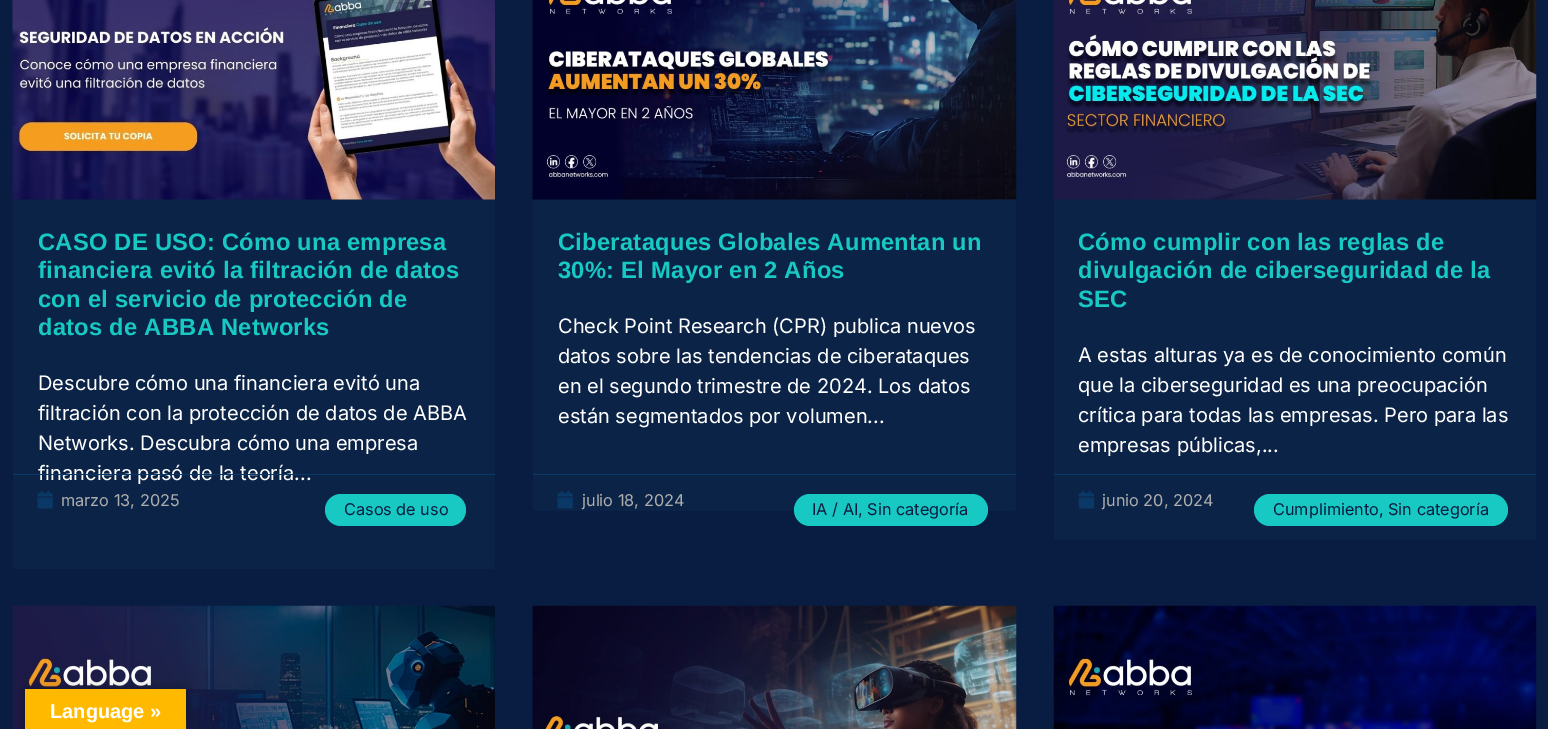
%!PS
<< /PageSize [1548 729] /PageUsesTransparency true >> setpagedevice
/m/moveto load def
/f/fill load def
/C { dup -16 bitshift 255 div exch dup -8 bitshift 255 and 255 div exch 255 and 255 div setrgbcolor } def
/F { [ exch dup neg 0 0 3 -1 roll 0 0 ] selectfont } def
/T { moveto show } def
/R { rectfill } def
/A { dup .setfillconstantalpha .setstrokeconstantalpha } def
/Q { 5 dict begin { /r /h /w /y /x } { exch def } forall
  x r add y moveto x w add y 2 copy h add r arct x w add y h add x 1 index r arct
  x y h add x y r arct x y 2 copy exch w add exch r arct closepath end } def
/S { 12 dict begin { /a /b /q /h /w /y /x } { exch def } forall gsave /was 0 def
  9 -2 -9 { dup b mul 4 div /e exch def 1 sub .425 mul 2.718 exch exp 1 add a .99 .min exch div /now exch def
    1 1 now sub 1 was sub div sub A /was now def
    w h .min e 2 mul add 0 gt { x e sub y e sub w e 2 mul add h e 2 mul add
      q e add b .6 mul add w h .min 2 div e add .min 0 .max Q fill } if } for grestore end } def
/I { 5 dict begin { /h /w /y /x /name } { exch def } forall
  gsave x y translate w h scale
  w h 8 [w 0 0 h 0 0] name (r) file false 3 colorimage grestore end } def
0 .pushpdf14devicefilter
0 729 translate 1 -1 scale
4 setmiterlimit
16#091D42 C
0 0 1548 729 R
16#0B2347 C
13 -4 482 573 4 Q f
(1.rgb) 12 0 483 200 I
/LiberationSans-Bold 23.75 F
16#17C8C3 C
38 250 m .25 0 (CASO DE USO: Cómo una empresa) ashow
38 278 m .25 0 (financiera evitó la filtración de datos) ashow
38 307 m .25 0 (con el servicio de protección de) ashow
38 335 m .25 0 (datos de ABBA Networks) ashow
/Inter-Regular 20 F
16#FFFFFF C
(Descubre cómo una financiera evitó una) 38 390 T
(filtración con la protección de datos de ABBA) 38 420 T
(Networks. Descubra cómo una empresa) 38 450 T
(financiera pasó de la teoría...) 38 480 T
16#17C8C3 C
325 494 141 32 16 Q f
/Inter-Regular 16.25 F
16#091D42 C
(Casos de uso) 344 515 T
16#0A3967 C
13 474 482 1 R
(2.rgb) 37 491 16 18 I
16#ADADAD C
(marzo 13, 2025) 61 506 T
16#0B2347 C
533 -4 483 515 4 Q f
(3.rgb) 532 0 485 200 I
/LiberationSans-Bold 23.75 F
16#17C8C3 C
558 250 m .25 0 (Ciberataques Globales Aumentan un) ashow
558 278 m .25 0 (30%: El Mayor en 2 Años) ashow
/Inter-Regular 20 F
16#FFFFFF C
(Check Point Research \(CPR\) publica nuevos) 558 333 T
(datos sobre las tendencias de ciberataques) 558 363 T
(en el segundo trimestre de 2024. Los datos) 558 393 T
(están segmentados por volumen...) 558 423 T
16#17C8C3 C
794 494 194 32 16 Q f
/Inter-Regular 16.25 F
16#091D42 C
(IA / AI, Sin categoría) 812 515 T
16#0A3967 C
533 474 483 1 R
(2.rgb) 557 491 16 18 I
16#ADADAD C
(julio 18, 2024) 582 506 T
16#0B2347 C
1054 -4 482 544 4 Q f
(4.rgb) 1053 0 484 200 I
/LiberationSans-Bold 23.75 F
16#17C8C3 C
1078 250 m .25 0 (Cómo cumplir con las reglas de) ashow
1078 278 m .25 0 (divulgación de ciberseguridad de la) ashow
1078 307 m .25 0 (SEC) ashow
/Inter-Regular 20 F
16#FFFFFF C
(A estas alturas ya es de conocimiento común) 1078 362 T
(que la ciberseguridad es una preocupación) 1078 392 T
(crítica para todas las empresas. Pero para las) 1078 422 T
(empresas públicas,...) 1078 452 T
16#17C8C3 C
1254 494 254 32 16 Q f
/Inter-Regular 16.25 F
16#091D42 C
(Cumplimiento, Sin categoría) 1273 515 T
16#0A3967 C
1054 474 482 1 R
(5.rgb) 1078 491 16 18 I
16#ADADAD C
(junio 20, 2024) 1102 506 T
(6.rgb) 12 605 483 124 I
(7.rgb) 532 605 485 124 I
(8.rgb) 1053 605 484 124 I
16#000000 C
25 689 161 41 0 5.5 .3 S
16#FFBA00 C
25 689 161 40 R
/LiberationSans-Bold 20 F
16#FFFFFF C
(Language ») 50 718 T
.poppdf14devicefilter showpage
